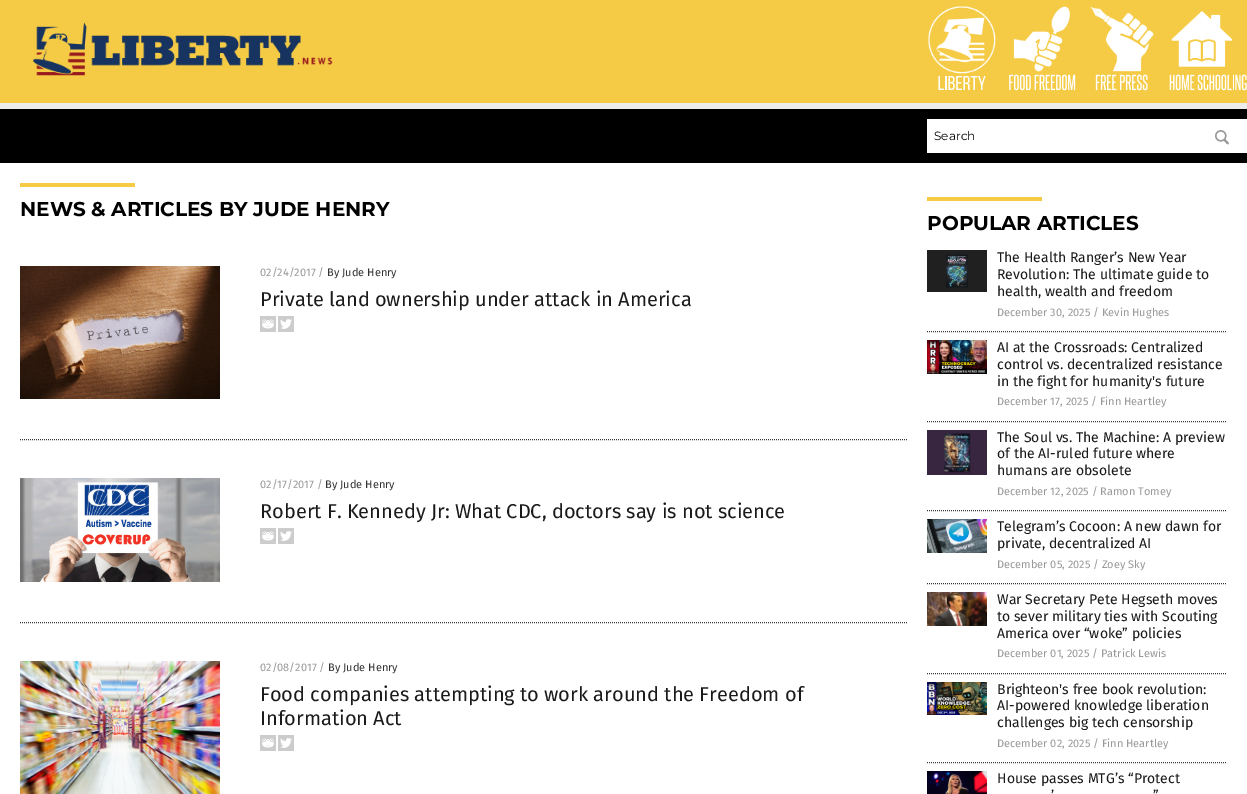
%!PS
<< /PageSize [1247 794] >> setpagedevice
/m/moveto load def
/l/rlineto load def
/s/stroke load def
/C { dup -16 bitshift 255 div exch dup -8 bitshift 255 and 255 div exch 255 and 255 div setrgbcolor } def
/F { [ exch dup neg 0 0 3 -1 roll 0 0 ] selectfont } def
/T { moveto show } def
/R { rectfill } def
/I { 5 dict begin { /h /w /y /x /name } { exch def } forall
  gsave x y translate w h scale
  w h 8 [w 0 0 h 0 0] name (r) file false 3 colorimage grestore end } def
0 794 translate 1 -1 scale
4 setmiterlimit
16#000000 C
0 0 1247 794 R
16#F5CA45 C
0 0 1247 103 R
(1.rgb) 33 22 300 54 I
(2.rgb) 928 6 68 68 I
(3.rgb) 938 76 48 14 I
(4.rgb) 1013 6 57 66 I
(5.rgb) 1009 74 67 17 I
(6.rgb) 1090 6 64 66 I
(7.rgb) 1095 74 53 17 I
(8.rgb) 1171 11 62 56 I
(9.rgb) 1169 74 78 17 I
16#ECECEC C
0 103 1247 6 R
16#FFFFFF C
927 119 320 34 R
/Montserrat-Regular 12 F
16#000000 C
(Search) 934 140 T
(10.rgb) 1215 130 14 15 I
16#FFFFFF C
0 163 1247 631 R
16#F5CA45 C
20 183 115 4 R
/Montserrat-Bold 20 F
16#000000 C
(NEWS & ARTICLES BY JUDE HENRY) 20 216 T
16#343434 C
[1 1] 0 setdash
20 439.5 m 887 0 l s
(11.rgb) 20 266 200 133 I
/FiraSans-Regular 11 F
16#999999 C
(02/24/2017 /) 260 276 T
16#333333 C
(By Jude Henry) 327 276 T
/FiraSans-Regular 20 F
16#1A1A1A C
(Private land ownership under attack in America) 260 306 T
(12.rgb) 260 316 16 16 I
(13.rgb) 278 316 16 16 I
16#343434 C
20 622.5 m 887 0 l s
(14.rgb) 20 478 200 104 I
/FiraSans-Regular 11 F
16#999999 C
(02/17/2017 /) 260 488 T
16#333333 C
(By Jude Henry) 325 488 T
/FiraSans-Regular 20 F
16#1A1A1A C
(Robert F. Kennedy Jr: What CDC, doctors say is not science) 260 518 T
(12.rgb) 260 528 16 16 I
(13.rgb) 278 528 16 16 I
(15.rgb) 20 661 200 133 I
/FiraSans-Regular 11 F
16#999999 C
(02/08/2017 /) 260 671 T
16#333333 C
(By Jude Henry) 328 671 T
/FiraSans-Regular 20 F
16#1A1A1A C
(Food companies attempting to work around the Freedom of) 260 701 T
(Information Act) 260 725 T
(12.rgb) 260 735 16 16 I
(13.rgb) 278 735 16 16 I
16#F5CA45 C
927 197 115 4 R
/Montserrat-Bold 20 F
16#000000 C
(POPULAR ARTICLES) 927 230 T
16#343434 C
927 331.5 m 300 0 l s
(16.rgb) 927 250 60 42 I
/FiraSans-Regular 14 F
16#1A1A1A C
(The Health Ranger’s New Year) 997 262 T
(Revolution: The ultimate guide to) 997 279 T
(health, wealth and freedom) 997 296 T
/FiraSans-Regular 11 F
16#999999 C
(December 30, 2025 / Kevin Hughes) 997 316 T
16#343434 C
927 421.5 m 300 0 l s
(17.rgb) 927 340 60 34 I
/FiraSans-Regular 14 F
16#1A1A1A C
(AI at the Crossroads: Centralized) 997 352 T
(control vs. decentralized resistance) 997 369 T
(in the fight for humanity's future) 997 386 T
/FiraSans-Regular 11 F
16#999999 C
(December 17, 2025 / Finn Heartley) 997 405 T
16#343434 C
927 510.5 m 300 0 l s
(18.rgb) 927 430 60 45 I
/FiraSans-Regular 14 F
16#1A1A1A C
(The Soul vs. The Machine: A preview) 997 442 T
(of the AI-ruled future where) 997 458 T
(humans are obsolete) 997 475 T
/FiraSans-Regular 11 F
16#999999 C
(December 12, 2025 / Ramon Tomey) 997 495 T
16#343434 C
927 583.5 m 300 0 l s
(19.rgb) 927 519 60 34 I
/FiraSans-Regular 14 F
16#1A1A1A C
(Telegram’s Cocoon: A new dawn for) 997 531 T
(private, decentralized AI) 997 548 T
/FiraSans-Regular 11 F
16#999999 C
(December 05, 2025 / Zoey Sky) 997 568 T
16#343434 C
927 673.5 m 300 0 l s
(20.rgb) 927 592 60 34 I
/FiraSans-Regular 14 F
16#1A1A1A C
(War Secretary Pete Hegseth moves) 997 604 T
(to sever military ties with Scouting) 997 621 T
(America over “woke” policies) 997 638 T
/FiraSans-Regular 11 F
16#999999 C
(December 01, 2025 / Patrick Lewis) 997 657 T
16#343434 C
927 762.5 m 300 0 l s
(21.rgb) 927 682 60 33 I
/FiraSans-Regular 14 F
16#1A1A1A C
(Brighteon's free book revolution:) 997 694 T
(AI-powered knowledge liberation) 997 710 T
(challenges big tech censorship) 997 727 T
/FiraSans-Regular 11 F
16#999999 C
(December 02, 2025 / Finn Heartley) 997 747 T
(22.rgb) 927 771 60 23 I
/FiraSans-Regular 14 F
16#1A1A1A C
(House passes MTG’s “Protect) 997 783 T
(’) 1051 800 T
(”) 1153 800 T
showpage
